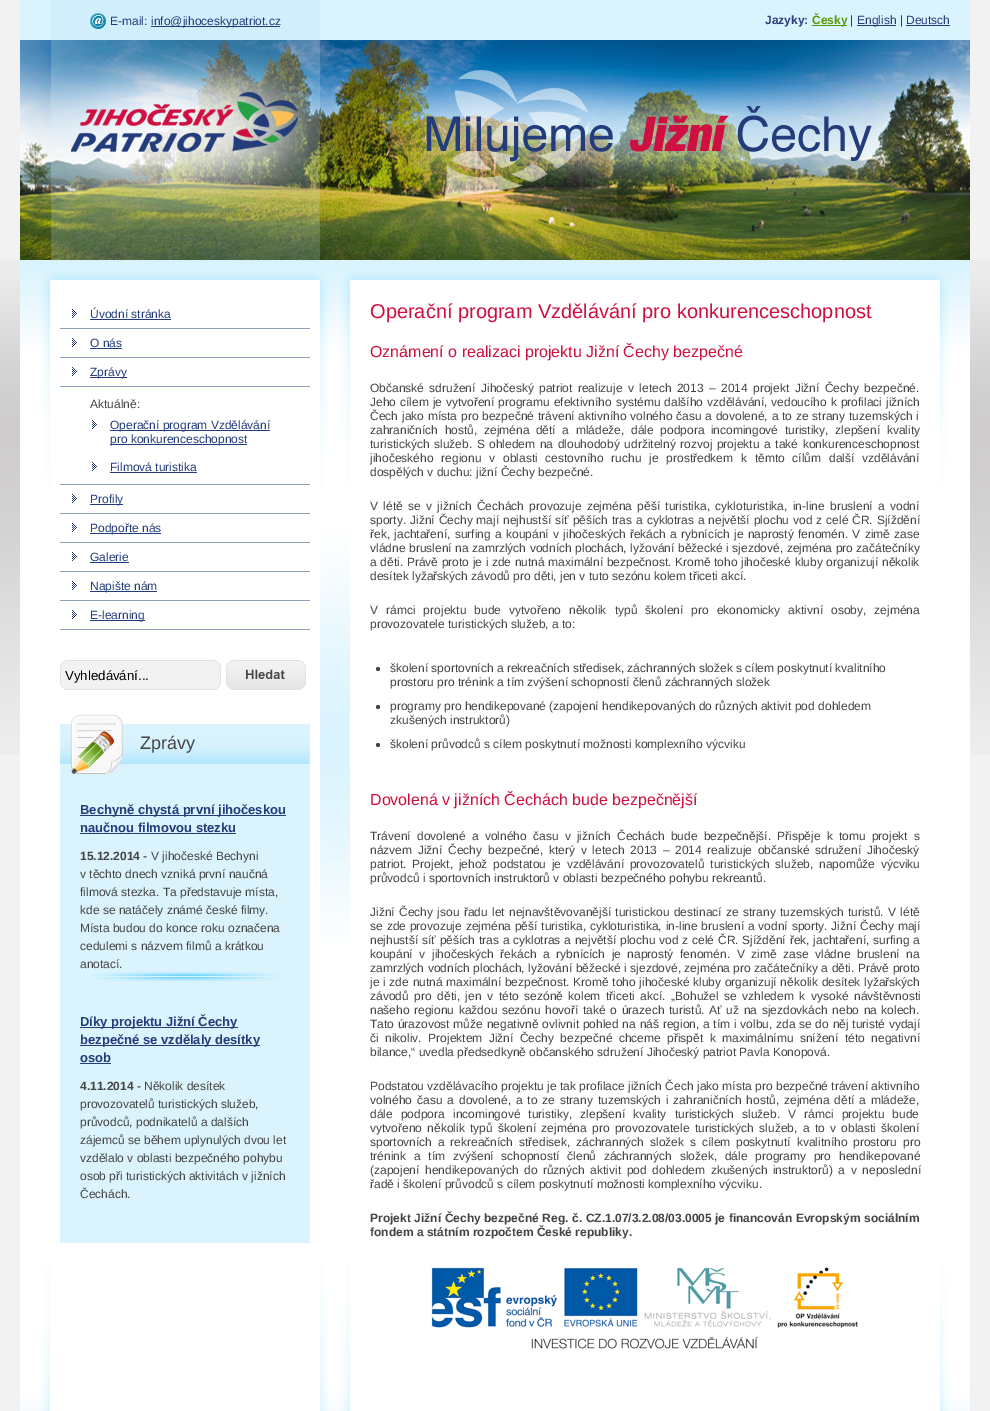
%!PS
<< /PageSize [990 1411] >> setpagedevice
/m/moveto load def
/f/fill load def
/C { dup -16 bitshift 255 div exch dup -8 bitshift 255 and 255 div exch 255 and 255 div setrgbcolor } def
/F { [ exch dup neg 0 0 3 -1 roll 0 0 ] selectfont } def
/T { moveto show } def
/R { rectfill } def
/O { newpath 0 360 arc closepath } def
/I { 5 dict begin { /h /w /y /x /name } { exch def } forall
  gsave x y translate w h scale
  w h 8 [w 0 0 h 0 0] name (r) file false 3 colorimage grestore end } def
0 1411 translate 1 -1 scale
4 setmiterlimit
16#F2F2F2 C
0 0 990 1411 R
(1.rgb) 0 260 990 495 I
16#FFFFFF C
20 943 950 319 R
(2.rgb) 20 1262 950 149 I
(3.rgb) 20 260 950 683 I
(4.rgb) 20 0 950 260 I
(5.rgb) 90 13 16 16 I
/LiberationSans-Regular 12 F
16#233C7B C
(E-mail:) 110 25 T
151 26 129 1 R
(info@jihoceskypatriot.cz) 151 25 T
/LiberationSans-Bold 12 F
(Jazyky:) 765 24 T
16#589802 C
812 25 35 1 R
(Česky) 812 24 T
/LiberationSans-Regular 12 F
16#233C7B C
(|) 850 24 T
857 25 39 1 R
(English | Deutsch) 857 24 T
906 25 44 1 R
(6.rgb) 72 309 5 9 I
16#919DBD C
60 328 250 1 R
16#233C7B C
(Úvodní stránka) 90 318 T
90 319 81 1 R
(6.rgb) 72 338 5 9 I
16#919DBD C
60 357 250 1 R
16#233C7B C
(O nás) 90 347 T
90 348 32 1 R
(6.rgb) 72 367 5 9 I
16#919DBD C
60 386 250 1 R
16#233C7B C
90 377 37 1 R
(Zprávy) 90 376 T
16#444444 C
(Aktuálně:) 90 408 T
(6.rgb) 92 420 5 9 I
16#233C7B C
110 430 160 1 R
(Operační program Vzdělávání) 110 429 T
110 444 137 1 R
(pro konkurenceschopnost) 110 443 T
(6.rgb) 92 462 5 9 I
(Filmová turistika) 110 471 T
110 472 87 1 R
(6.rgb) 72 494 5 9 I
16#919DBD C
60 484 250 1 R
60 513 250 1 R
16#233C7B C
90 504 33 1 R
(Profily) 90 503 T
(6.rgb) 72 523 5 9 I
16#919DBD C
60 542 250 1 R
16#233C7B C
90 533 71 1 R
(Podpořte nás) 90 532 T
(6.rgb) 72 552 5 9 I
16#919DBD C
60 571 250 1 R
16#233C7B C
(Galerie) 90 561 T
90 562 39 1 R
(6.rgb) 72 581 5 9 I
16#919DBD C
60 600 250 1 R
16#233C7B C
90 591 67 1 R
(Napište nám) 90 590 T
(6.rgb) 72 610 5 9 I
16#919DBD C
60 629 250 1 R
16#233C7B C
90 620 55 1 R
(E-learning) 90 619 T
(7.rgb) 60 660 161 30 I
/LiberationSans-Regular 13.25 F
16#000000 C
(Vyhledávání...) 65 680 T
(8.rgb) 226 660 80 30 I
16#DAF3FD C
60 774 250 469 R
(9.rgb) 92 971 188 11 I
(10.rgb) 60 711 250 63 I
/LiberationSans-Regular 18 F
16#444444 C
(Zprávy) 140 749 T
16#233C7B C
80 815 206 1 R
/LiberationSans-Bold 13 F
(Bechyně chystá první jihočeskou) 80 814 T
(naučnou filmovou stezku) 80 832 T
80 833 156 1 R
/LiberationSans-Bold 12 F
16#444444 C
(15.12.2014 -) 80 860 T
/LiberationSans-Regular 12 F
(V jihočeské Bechyni) 151 860 T
(v těchto dnech vzniká první naučná) 80 878 T
(filmová stezka. Ta představuje místa,) 80 896 T
(kde se natáčely známé české filmy.) 80 914 T
(Místa budou do konce roku označena) 80 932 T
(cedulemi s názvem filmů a krátkou) 80 950 T
(anotací.) 80 968 T
16#233C7B C
80 1027 158 1 R
/LiberationSans-Bold 13 F
(Díky projektu Jižní Čechy) 80 1026 T
80 1045 180 1 R
(bezpečné se vzdělaly desítky) 80 1044 T
(osob) 80 1062 T
80 1063 31 1 R
/LiberationSans-Bold 12 F
16#444444 C
(4.11.2014 -) 80 1090 T
/LiberationSans-Regular 12 F
(Několik desítek) 144 1090 T
(provozovatelů turistických služeb,) 80 1108 T
(průvodců, podnikatelů a dalších) 80 1126 T
(zájemců se během uplynulých dvou let) 80 1144 T
(vzdělalo v oblasti bezpečného pohybu) 80 1162 T
(osob při turistických aktivitách v jižních) 80 1180 T
(Čechách.) 80 1198 T
/LiberationSans-Regular 20 F
16#CE1041 C
(Operační program Vzdělávání pro konkurenceschopnost) 370 318 T
/LiberationSans-Regular 16 F
(Oznámení o realizaci projektu Jižní Čechy bezpečné) 370 357 T
/LiberationSans-Regular 12 F
16#444444 C
370 392 m 2.1 0 32 (Občanské sdružení Jihočeský patriot realizuje v letech 2013 – 2014 projekt Jižní Čechy bezpečné.) widthshow
370 406 m .6 0 32 (Jeho cílem je vytvoření programu efektivního systému dalšího vzdělávání, vedoucího k profilaci jižních) widthshow
370 420 m .5 0 32 (Čech jako místa pro bezpečné trávení aktivního volného času a dovolené, a to ze strany tuzemských i) widthshow
370 434 m 3.25 0 32 (zahraničních hostů, zejména dětí a mládeže, dále podpora incomingové turistiky, zlepšení kvality) widthshow
370 448 m 1.25 0 32 (turistických služeb. S ohledem na dlouhodobý udržitelný rozvoj projektu a také konkurenceschopnost) widthshow
370 462 m 4.5 0 32 (jihočeského regionu v oblasti cestovního ruchu je prostředkem k těmto cílům další vzdělávání) widthshow
(dospělých v duchu: jižní Čechy bezpečné.) 370 476 T
370 510 m 2 0 32 (V létě se v jižních Čechách provozuje zejména pěší turistika, cykloturistika, in-line bruslení a vodní) widthshow
370 524 m .6 0 32 (sporty. Jižní Čechy mají nejhustší síť pěších tras a cyklotras a největší plochu vod z celé ČR. Sjíždění) widthshow
370 538 m 1 0 32 (řek, jachtaření, surfing a koupání v jihočeských řekách a rybnících je naprostý fenomén. V zimě zase) widthshow
370 552 m .25 0 32 (vládne bruslení na zamrzlých vodních plochách, lyžování běžecké i sjezdové, zejména pro začátečníky) widthshow
370 566 m .3 0 32 (a děti. Právě proto je i zde nutná maximální bezpečnost. Kromě toho jihočeské kluby organizují několik) widthshow
(desítek lyžařských závodů pro děti, jen v tuto sezónu kolem třiceti akcí.) 370 580 T
370 614 m 4.75 0 32 (V rámci projektu bude vytvořeno několik typů školení pro ekonomicky aktivní osoby, zejména) widthshow
(provozovatele turistických služeb, a to:) 370 628 T
378 669 2 O f
(školení sportovních a rekreačních středisek, záchranných složek s cílem poskytnutí kvalitního) 390 672 T
(prostoru pro trénink a tím zvýšení schopností členů záchranných složek) 390 686 T
378 707 2 O f
(programy pro hendikepované \(zapojení hendikepovaných do různých aktivit pod dohledem) 390 710 T
(zkušených instruktorů\)) 390 724 T
378 745 2 O f
(školení průvodců s cílem poskytnutí možnosti komplexního výcviku) 390 748 T
/LiberationSans-Regular 16 F
16#CE1041 C
(Dovolená v jižních Čechách bude bezpečnější) 370 805 T
/LiberationSans-Regular 12 F
16#444444 C
370 840 m 2.9 0 32 (Trávení dovolené a volného času v jižních Čechách bude bezpečnější. Přispěje k tomu projekt s) widthshow
370 854 m 2.4 0 32 (názvem Jižní Čechy bezpečné, který v letech 2013 – 2014 realizuje občanské sdružení Jihočeský) widthshow
370 868 m 2.4 0 32 (patriot. Projekt, jehož podstatou je vzdělávání provozovatelů turistických služeb, napomůže výcviku) widthshow
(průvodců i sportovních instruktorů v oblasti bezpečného pohybu rekreantů.) 370 882 T
370 916 m 1 0 32 (Jižní Čechy jsou řadu let nejnavštěvovanější turistickou destinací ze strany tuzemských turistů. V létě) widthshow
370 930 m .5 0 32 (se zde provozuje zejména pěší turistika, cykloturistika, in-line bruslení a vodní sporty. Jižní Čechy mají) widthshow
370 944 m .5 0 32 (nejhustší síť pěších tras a cyklotras a největší plochu vod z celé ČR. Sjíždění řek, jachtaření, surfing a) widthshow
370 958 m 3.25 0 32 (koupání v jihočeských řekách a rybnících je naprostý fenomén. V zimě zase vládne bruslení na) widthshow
370 972 m .25 0 32 (zamrzlých vodních plochách, lyžování běžecké i sjezdové, zejména pro začátečníky a děti. Právě proto) widthshow
370 986 m .4 0 32 (je i zde nutná maximální bezpečnost. Kromě toho jihočeské kluby organizují několik desítek lyžařských) widthshow
370 1000 m 2.25 0 32 (závodů pro děti, jen v této sezóně kolem třiceti akcí. „Bohužel se vzhledem k vysoké návštěvnosti) widthshow
370 1014 m 1.25 0 32 (našeho regionu každou sezónu hovoří také o úrazech turistů. Ať už na sjezdovkách nebo na kolech.) widthshow
370 1028 m .4 0 32 (Tato úrazovost může negativně ovlivnit pohled na náš region, a tím i volbu, zda se do něj turisté vydají) widthshow
370 1042 m 3.1 0 32 (či nikoliv. Projektem Jižní Čechy bezpečné chceme přispět k maximálnímu snížení této negativní) widthshow
(bilance,“ uvedla předsedkyně občanského sdružení Jihočeský patriot Pavla Konopová.) 370 1056 T
370 1090 m .1 0 32 (Podstatou vzdělávacího projektu je tak profilace jižních Čech jako místa pro bezpečné trávení aktivního) widthshow
370 1104 m 1.6 0 32 (volného času a dovolené, a to ze strany tuzemských i zahraničních hostů, zejména dětí a mládeže,) widthshow
370 1118 m 4.75 0 32 (dále podpora incomingové turistiky, zlepšení kvality turistických služeb. V rámci projektu bude) widthshow
370 1132 m 2 0 32 (vytvořeno několik typů školení zejména pro provozovatele turistických služeb, a to v oblasti školení) widthshow
370 1146 m 2.5 0 32 (sportovních a rekreačních středisek, záchranných složek s cílem poskytnutí kvalitního prostoru pro) widthshow
370 1160 m 4.5 0 32 (trénink a tím zvýšení schopností členů záchranných složek, dále programy pro hendikepované) widthshow
370 1174 m 2.25 0 32 (\(zapojení hendikepovaných do různých aktivit pod dohledem zkušených instruktorů\) a v neposlední) widthshow
(řadě i školení průvodců s cílem poskytnutí možnosti komplexního výcviku.) 370 1188 T
/LiberationSans-Bold 12 F
370 1222 m .25 0 32 (Projekt Jižní Čechy bezpečné Reg. č. CZ.1.07/3.2.08/03.0005 je financován Evropským sociálním) widthshow
(fondem a státním rozpočtem České republiky.) 370 1236 T
(11.rgb) 431 1267 427 82 I
showpage
